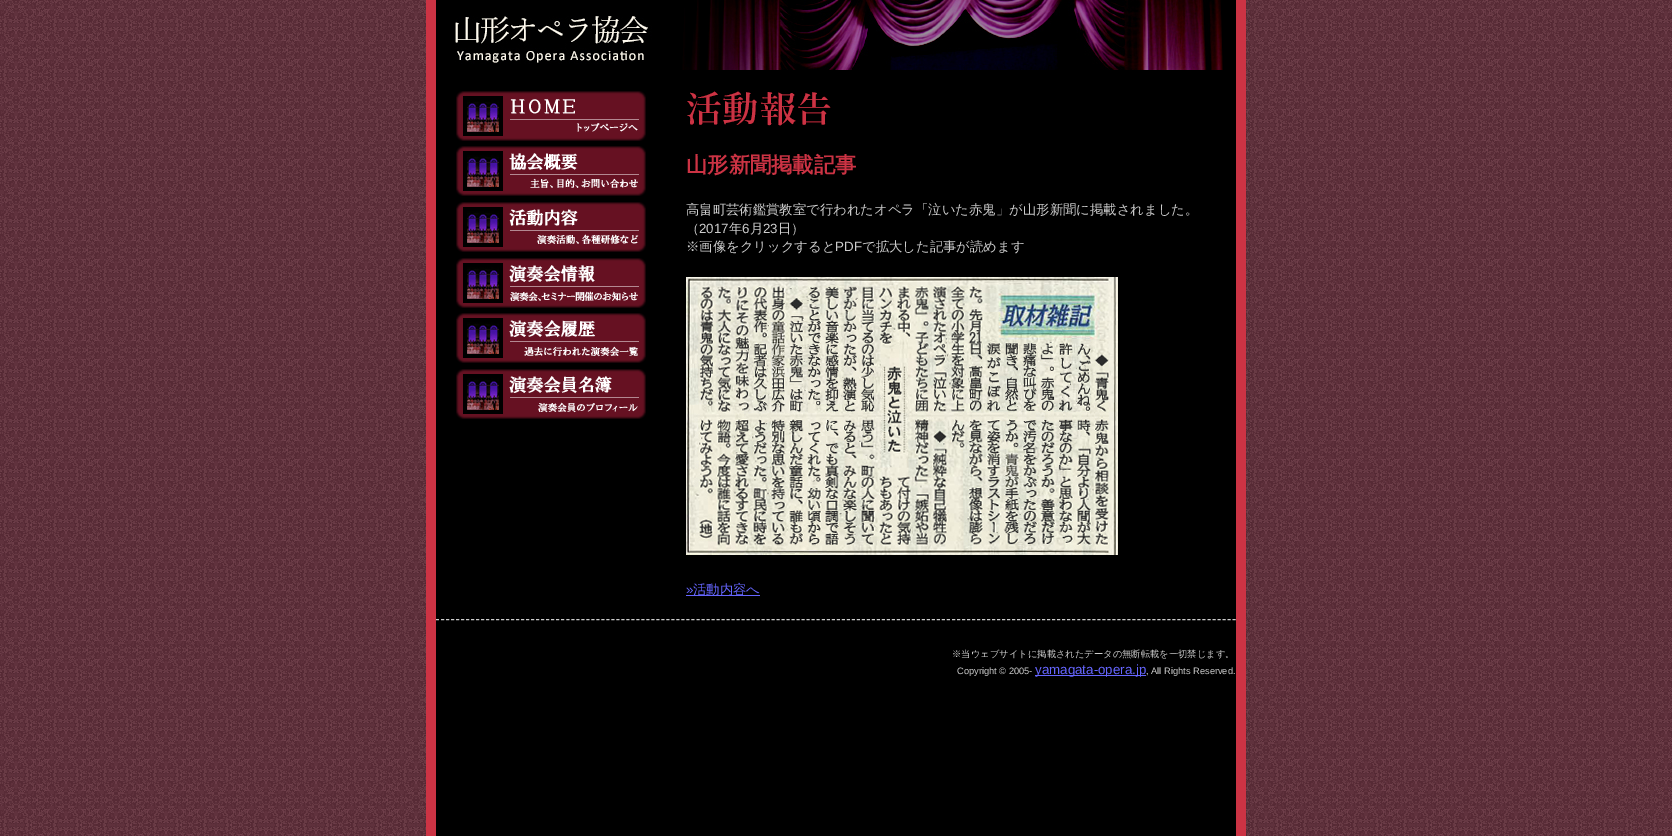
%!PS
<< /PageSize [1672 836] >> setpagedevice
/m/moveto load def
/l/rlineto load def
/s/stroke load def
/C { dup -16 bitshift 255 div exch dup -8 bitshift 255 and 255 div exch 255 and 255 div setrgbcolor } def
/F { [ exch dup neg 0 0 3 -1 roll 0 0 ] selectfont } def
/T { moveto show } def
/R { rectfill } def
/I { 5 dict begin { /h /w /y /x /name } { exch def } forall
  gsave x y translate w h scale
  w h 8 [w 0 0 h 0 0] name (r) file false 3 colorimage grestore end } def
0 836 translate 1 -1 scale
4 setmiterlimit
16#FFFFFF C
0 0 1672 836 R
(1.rgb) 0 0 1672 836 I
(2.rgb) 455 0 768 70 I
(3.rgb) 456 91 190 50 I
(4.rgb) 456 146 190 50 I
(5.rgb) 456 202 190 50 I
(6.rgb) 456 258 190 50 I
(7.rgb) 456 313 190 50 I
(8.rgb) 456 369 190 50 I
(9.rgb) 687 91 144 35 I
/WenQuanYiZenHei-Bold 21.25 F
16#CC3344 C
(山形新聞掲載記事) 686 172 T
/WenQuanYiZenHei-Medium 13.35 F
16#CCCCCC C
(高畠町芸術鑑賞教室で行われたオペラ「泣いた赤鬼」が山形新聞に掲載されました。) 686 214 T
(（) 686 233 T
/LiberationSans-Regular 13.35 F
(2017) 699 233 T
/WenQuanYiZenHei-Medium 13.35 F
(年) 729 233 T
/LiberationSans-Regular 13.35 F
(6) 742 233 T
/WenQuanYiZenHei-Medium 13.35 F
(月) 750 233 T
/LiberationSans-Regular 13.35 F
(23) 763 233 T
/WenQuanYiZenHei-Medium 13.35 F
(日）) 778 233 T
(※画像をクリックすると) 686 251 T
/LiberationSans-Regular 13.35 F
(PDF) 835 251 T
/WenQuanYiZenHei-Medium 13.35 F
(で拡大した記事が読めます) 862 251 T
(10.rgb) 686 277 432 278 I
/LiberationSans-Regular 13.35 F
16#6666FF C
(») 686 594 T
686 595 74 1 R
/WenQuanYiZenHei-Medium 13.35 F
(活動内容へ) 693 594 T
16#CCCCCC C
[3 2.01] 0 setdash
436 619.5 m 800 0 l s
/WenQuanYiZenHei-Medium 9.3 F
(※当ウェブサイトに掲載されたデータの無断転載を一切禁じます。) 952 657 T
/LiberationSans-Regular 9.3 F
(Copyright © 2005-) 957 674 T
16#6666FF C
1035 675 111 1 R
/LiberationSans-Regular 13.35 F
(yamagata-opera.jp) 1035 674 T
/LiberationSans-Regular 9.3 F
16#CCCCCC C
(, All Rights Reserved.) 1146 674 T
showpage
